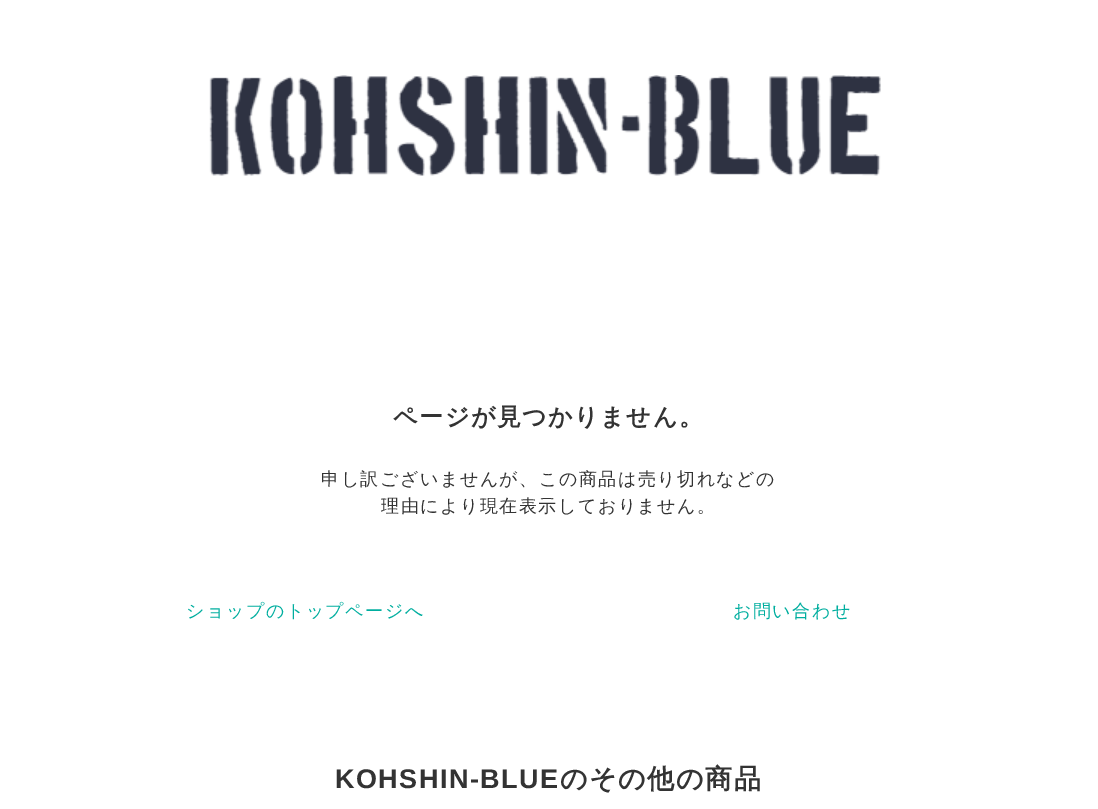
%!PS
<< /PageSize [1098 809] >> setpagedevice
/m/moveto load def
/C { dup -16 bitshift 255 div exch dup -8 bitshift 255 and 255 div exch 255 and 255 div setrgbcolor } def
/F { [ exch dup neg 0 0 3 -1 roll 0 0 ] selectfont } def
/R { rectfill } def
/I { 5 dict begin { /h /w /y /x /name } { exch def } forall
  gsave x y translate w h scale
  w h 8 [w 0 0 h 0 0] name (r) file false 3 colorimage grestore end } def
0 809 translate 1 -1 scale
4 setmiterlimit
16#FFFFFF C
0 0 1098 809 R
(1.rgb) 209 75 672 101 I
/WenQuanYiZenHei-Bold 24 F
16#333333 C
393 425 m 1.5 0 (ページが見つかりません。) ashow
/WenQuanYiZenHei-Medium 18 F
321 485 m 1.5 0 (申し訳ございませんが、この商品は売り切れなどの) ashow
381 512 m 1.5 0 (理由により現在表示しておりません。) ashow
16#00AE9F C
186 617 m 1.5 0 (ショップのトップページへ) ashow
733 617 m 1.5 0 (お問い合わせ) ashow
/LiberationSans-Bold 27 F
16#333333 C
335 788 m 1.5 0 (KOHSHIN-BLUE) ashow
/WenQuanYiZenHei-Bold 27 F
560 788 m 1.5 0 (のその他の商品) ashow
showpage
